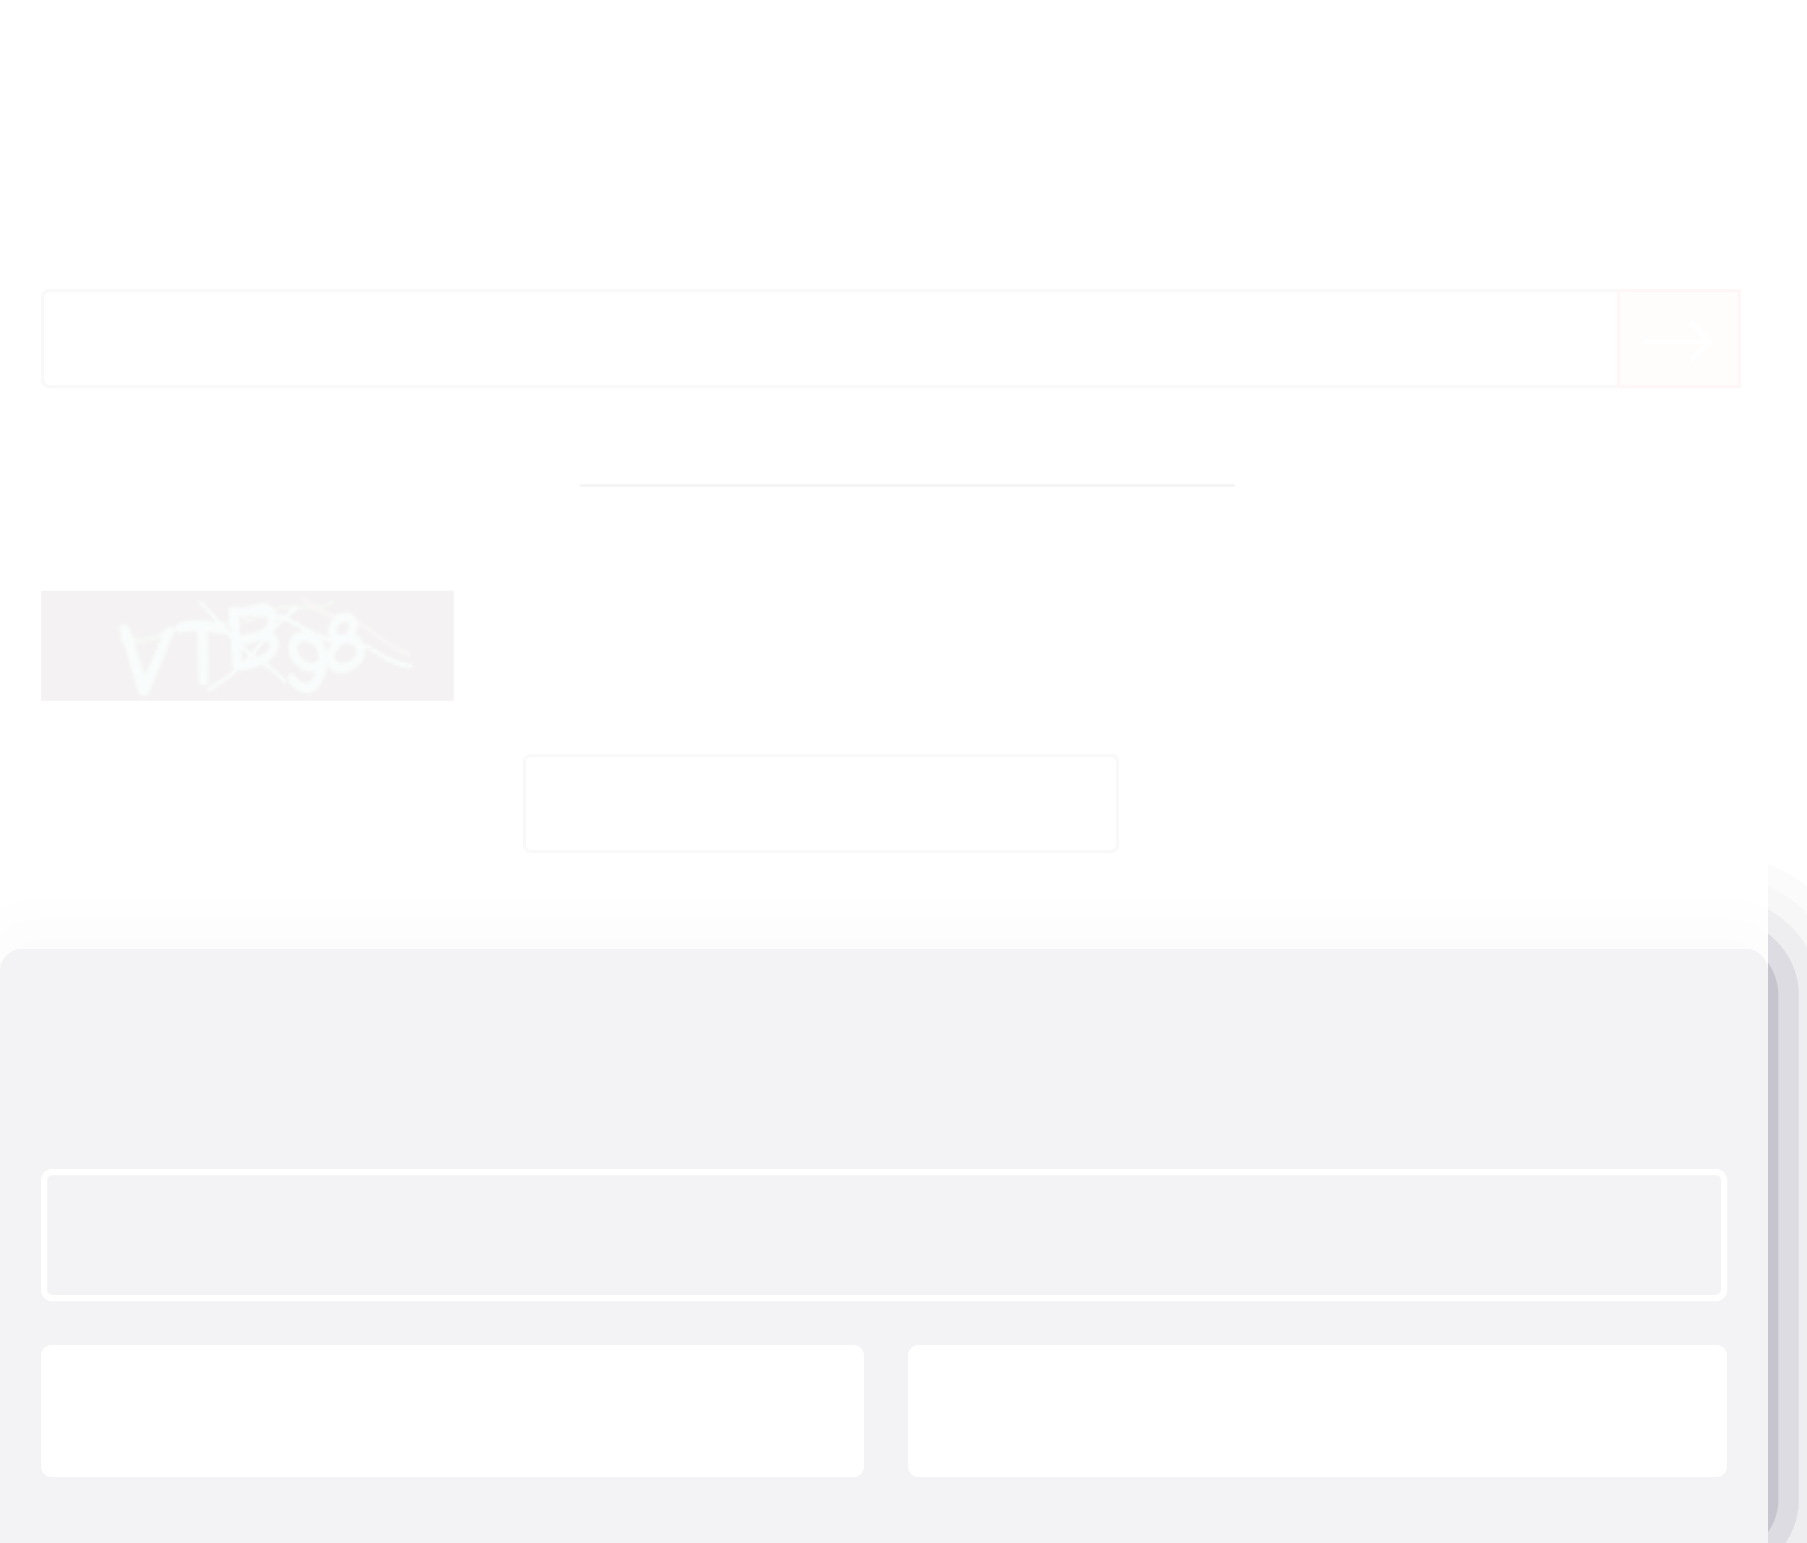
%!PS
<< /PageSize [1807 1543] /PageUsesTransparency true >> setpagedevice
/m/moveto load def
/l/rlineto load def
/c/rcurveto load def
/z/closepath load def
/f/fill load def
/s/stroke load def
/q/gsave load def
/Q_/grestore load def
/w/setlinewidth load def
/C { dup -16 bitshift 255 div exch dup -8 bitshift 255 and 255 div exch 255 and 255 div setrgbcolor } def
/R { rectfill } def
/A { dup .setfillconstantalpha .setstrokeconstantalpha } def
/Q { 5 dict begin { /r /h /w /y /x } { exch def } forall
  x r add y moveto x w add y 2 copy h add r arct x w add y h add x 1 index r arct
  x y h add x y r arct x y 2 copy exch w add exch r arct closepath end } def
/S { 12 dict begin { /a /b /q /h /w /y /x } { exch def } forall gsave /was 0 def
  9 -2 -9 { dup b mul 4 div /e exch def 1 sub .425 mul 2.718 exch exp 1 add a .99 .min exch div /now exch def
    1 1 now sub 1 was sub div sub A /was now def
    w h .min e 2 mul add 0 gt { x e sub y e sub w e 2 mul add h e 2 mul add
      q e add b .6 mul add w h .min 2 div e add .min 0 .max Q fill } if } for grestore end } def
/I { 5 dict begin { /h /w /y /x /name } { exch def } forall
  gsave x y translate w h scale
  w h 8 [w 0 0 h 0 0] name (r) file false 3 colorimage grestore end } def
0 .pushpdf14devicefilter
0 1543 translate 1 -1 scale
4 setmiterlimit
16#FFFFFF C
0 0 1807 1543 R
16#919191 C
3 w
42.5 290.5 1697 96 6.5 Q s
16#FFCCC9 C
1618.5 290.5 m 121 0 l 0 96 l -121 0 l z q f Q_
16#FD6864 C
s
16#FFFFFF C
1693 320 m 20 21 l -20 21 l -4 -4 l 15 -14 l -60 0 l 0 -5 l 60 0 l -15 -15 l z f
16#343434 C
580 484 655 3 R
(1.rgb) 41 590 413 111 I
16#919191 C
524.5 755.5 593 96 6.5 Q s
16#1B1939 C
0 949 1768 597 22 41 .5 S
16#1A1937 C
22 949 m 1724 0 l 12 0 22 10 22 22 c 0 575 l -1768 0 l 0 -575 l 0 -12 10 -22 22 -22 c z f
16#F8FAFB C
6 w
44 1172 1680 126 8 Q s
41 1345 823 132 11 Q f
908 1345 819 132 11 Q f
0.95 A
16#FFFFFF C
0 289 1768 1254 R
.poppdf14devicefilter showpage
